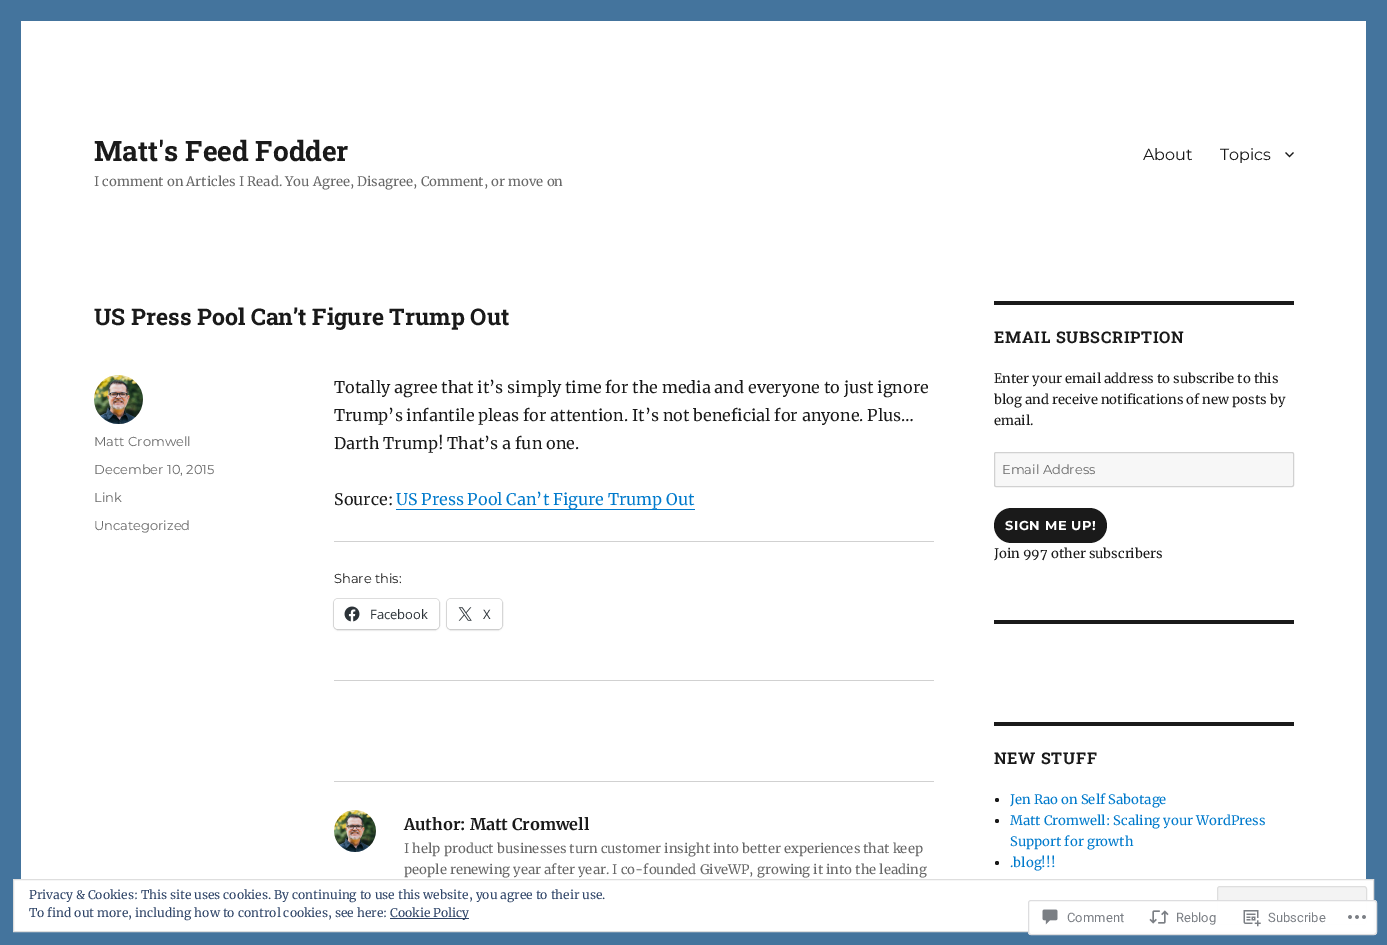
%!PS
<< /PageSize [1387 945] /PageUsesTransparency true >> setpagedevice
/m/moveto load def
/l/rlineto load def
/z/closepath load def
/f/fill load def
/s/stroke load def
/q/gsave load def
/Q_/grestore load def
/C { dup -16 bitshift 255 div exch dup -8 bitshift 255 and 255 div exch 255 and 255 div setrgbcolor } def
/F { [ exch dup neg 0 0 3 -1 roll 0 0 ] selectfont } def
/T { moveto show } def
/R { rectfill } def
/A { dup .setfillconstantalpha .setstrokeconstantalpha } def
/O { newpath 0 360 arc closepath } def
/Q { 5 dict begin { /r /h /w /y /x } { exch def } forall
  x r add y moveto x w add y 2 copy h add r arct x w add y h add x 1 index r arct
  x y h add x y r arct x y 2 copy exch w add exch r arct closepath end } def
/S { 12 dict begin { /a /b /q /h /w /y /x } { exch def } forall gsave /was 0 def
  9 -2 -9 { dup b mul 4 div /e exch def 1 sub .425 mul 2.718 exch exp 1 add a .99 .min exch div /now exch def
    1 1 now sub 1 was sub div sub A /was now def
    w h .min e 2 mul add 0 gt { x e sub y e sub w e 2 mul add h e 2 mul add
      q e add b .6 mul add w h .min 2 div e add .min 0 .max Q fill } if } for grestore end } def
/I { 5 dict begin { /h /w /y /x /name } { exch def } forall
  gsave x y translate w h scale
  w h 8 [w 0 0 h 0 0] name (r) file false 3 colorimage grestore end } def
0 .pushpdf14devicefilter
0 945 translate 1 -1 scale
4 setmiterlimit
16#44749D C
0 0 1387 945 R
16#FFFFFF C
21 21 1345 858 R
/RobotoSlab-Bold 28 F
16#1A1A1A C
(Matt's Feed Fodder) 94 161 T
/Merriweather-Regular 13 F
16#686868 C
(I comment on Articles I Read. You Agree, Disagree, Comment, or move on) 94 186 T
/Montserrat-Thin 16 F
16#1A1A1A C
(About) 1143 160 T
(Topics) 1220 160 T
(1.rgb) 1285 152 9 6 I
/RobotoSlab-Bold 23 F
(US Press Pool Can’t Figure Trump Out) 94 325 T
(2.rgb) 94 375 49 49 I
/Montserrat-Thin 13 F
16#686868 C
(Matt Cromwell) 94 446 T
(December 10, 2015) 94 474 T
(Link) 94 502 T
(Uncategorized) 94 530 T
/Merriweather-Regular 16 F
16#1A1A1A C
(Totally agree that it’s simply time for the media and everyone to just ignore) 334 393 T
(Trump’s infantile pleas for attention. It’s not beneficial for anyone. Plus…) 334 421 T
(Darth Trump! That’s a fun one.) 334 449 T
(Source:) 334 505 T
16#007ACC C
396 509 299 1 R
(US Press Pool Can’t Figure Trump Out) 396 505 T
16#D1D1D1 C
334 541 600 1 R
/Montserrat-Thin 13 F
16#1A1A1A C
(Share this:) 334 583 T
16#E0E0E0 C
333.5 598.5 106 31 4.5 Q s
16#000000 C
334 600 105 30 4 1 .12 S
16#FFFFFF C
334 599 105 30 4 Q f
(3.rgb) 344 606 16 16 I
/OpenSans-Regular 13 F
16#2C3338 C
(Facebook) 370 619 T
16#E0E0E0 C
446.5 598.5 56 31 4.5 Q s
16#000000 C
447 600 55 30 4 1 .12 S
16#FFFFFF C
447 599 55 30 4 Q f
(4.rgb) 458 607 14 14 I
16#2C3338 C
(X) 483 619 T
16#D1D1D1 C
334 680 600 1 R
334 781 600 1 R
(5.rgb) 334 810 42 42 I
/Merriweather-Bold 16 F
16#1A1A1A C
(Author: Matt Cromwell) 404 830 T
/Merriweather-Regular 13 F
16#686868 C
(I help product businesses turn customer insight into better experiences that keep) 404 853 T
(people renewing year after year. I co-founded GiveWP, growing it into the leading) 404 874 T
16#1A1A1A C
994 301 300 4 R
/RobotoSlab-Bold 16 F
994 343 m .75 0 (EMAIL SUBSCRIPTION) ashow
/Merriweather-Regular 13 F
(Enter your email address to subscribe to this) 994 383 T
(blog and receive notifications of new posts by) 994 404 T
(email.) 994 425 T
16#F7F7F7 C
994.5 452.5 299 34 1.5 Q q f Q_
16#D1D1D1 C
s
/Montserrat-Thin 13 F
16#686868 C
(Email Address) 1002 474 T
16#1A1A1A C
994 508 113 35 17.5 Q f
/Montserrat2-Thin 13 F
16#FFFFFF C
1005 530 m .6 0 (SIGN ME UP!) ashow
/Merriweather-Regular 13 F
16#1A1A1A C
(Join 997 other subscribers) 994 558 T
994 620 300 4 R
994 722 300 4 R
/RobotoSlab-Bold 16 F
994 764 m .75 0 (NEW STUFF) ashow
997 800 2 O f
/Merriweather-Regular 13 F
16#007ACC C
(Jen Rao on Self Sabotage) 1010 804 T
16#1A1A1A C
997 821 2 O f
16#007ACC C
(Matt Cromwell: Scaling your WordPress) 1010 825 T
(Support for growth) 1010 846 T
16#1A1A1A C
997 863 2 O f
16#007ACC C
(.blog!!!) 1010 867 T
16#FFFFFF C
13.5 879.5 m 1360 0 l 0 52 l -1360 0 l z q f Q_
16#DEDEDE C
s
/Merriweather-Regular 12 F
16#2E4467 C
(Privacy & Cookies: This site uses cookies. By continuing to use this website, you agree to their use.) 29 899 T
16#F3F3F3 C
1217.5 886.5 149 38 2.5 Q q f Q_
16#DEDEDE C
s
16#2E4467 C
(To find out more, including how to control cookies, see here:) 29 917 T
390 918 79 1 R
(Cookie Policy) 390 917 T
0.98 A
16#FFFFFF C
1028 900 349 35 3 Q f
16#DCDCDE C
1028.5 900.5 348 34 2.5 Q s
1 A
(6.rgb) 1042 909 16 16 I
/Roboto-Regular 13 F
16#7B7F85 C
(Comment) 1067 922 T
(7.rgb) 1149 910 20 14 I
(Reblog) 1176 922 T
(8.rgb) 1243 910 18 17 I
(Subscribe) 1268 922 T
(9.rgb) 1348 915 18 4 I
.poppdf14devicefilter showpage
